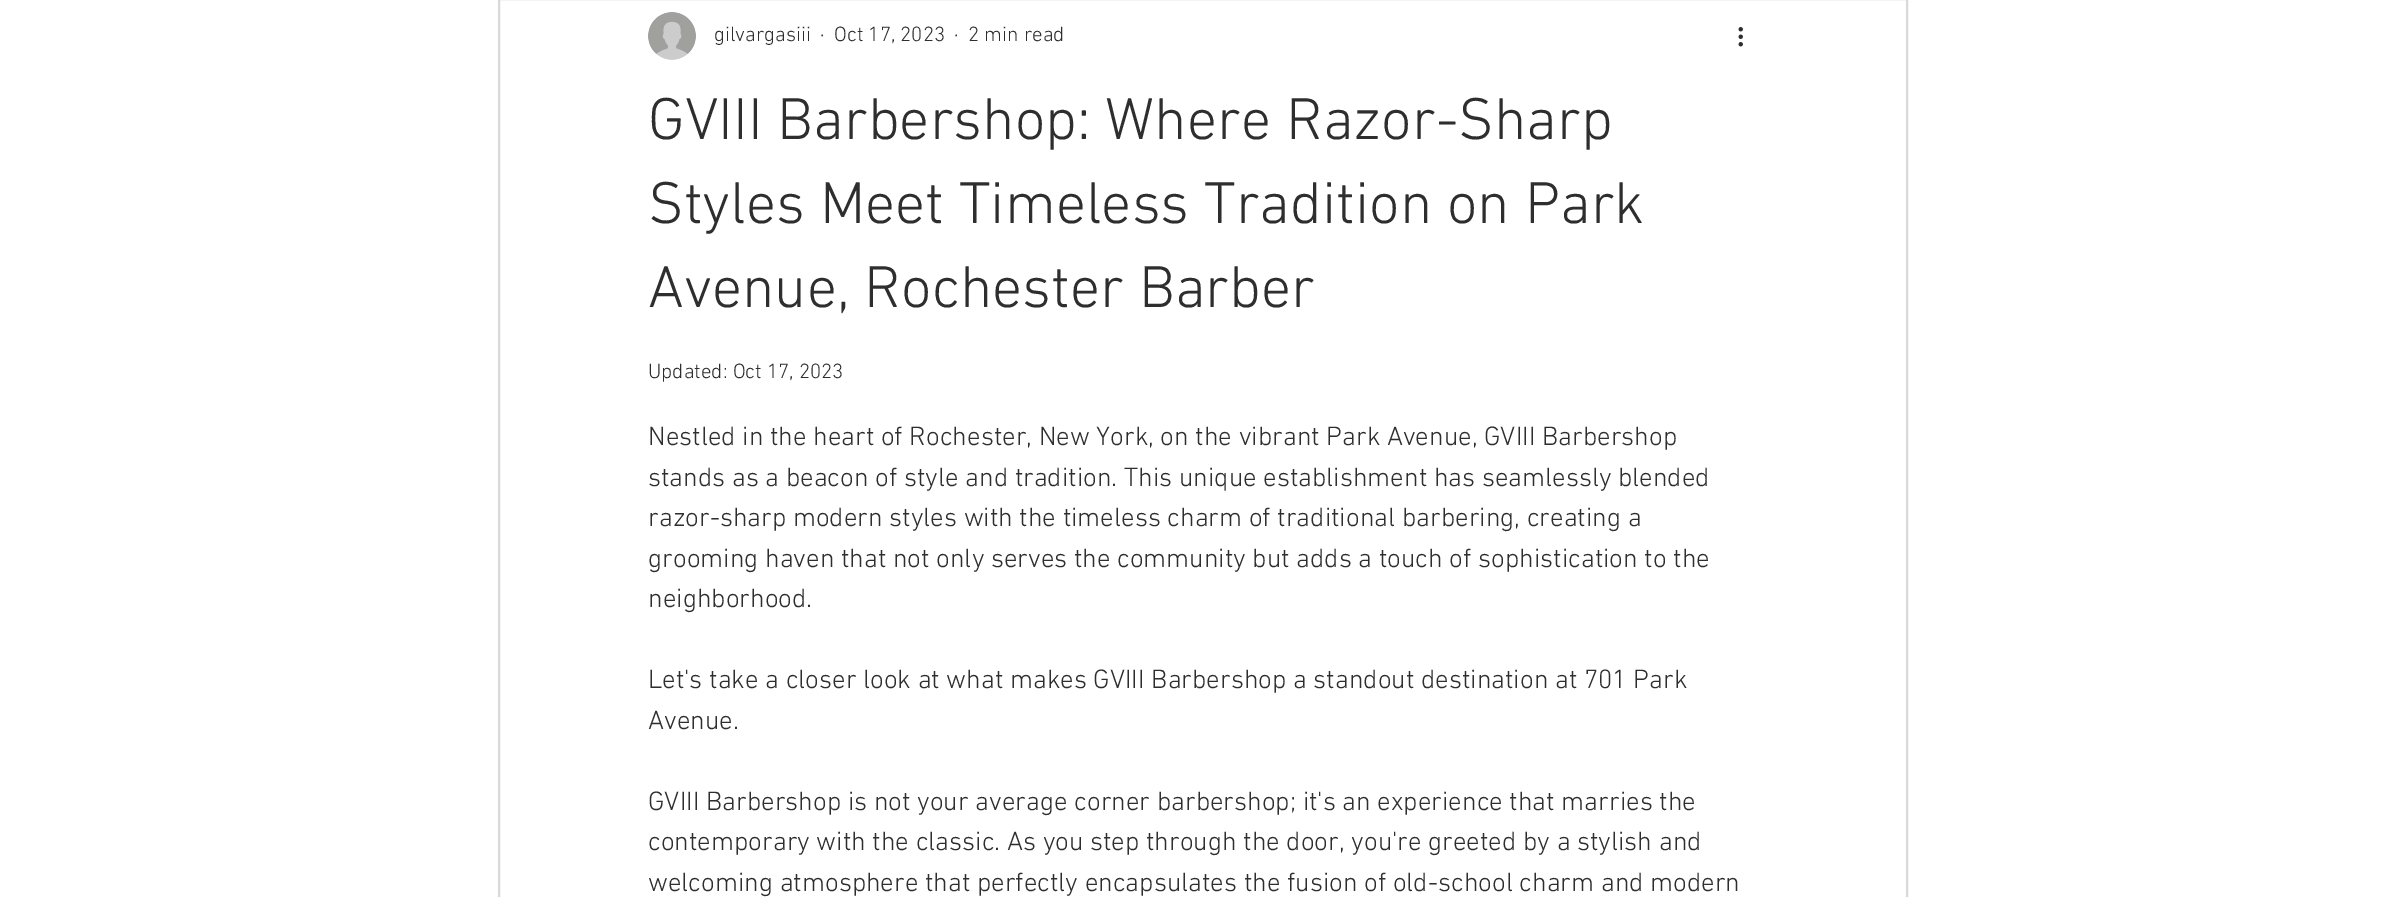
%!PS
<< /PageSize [2406 897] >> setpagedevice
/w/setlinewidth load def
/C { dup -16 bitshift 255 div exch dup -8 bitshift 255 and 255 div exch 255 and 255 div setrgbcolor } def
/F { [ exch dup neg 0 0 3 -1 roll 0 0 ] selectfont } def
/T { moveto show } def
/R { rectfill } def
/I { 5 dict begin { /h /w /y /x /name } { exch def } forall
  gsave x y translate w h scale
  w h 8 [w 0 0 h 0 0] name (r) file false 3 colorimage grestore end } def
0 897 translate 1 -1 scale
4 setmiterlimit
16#FFFFFF C
0 0 2406 897 R
16#D9D9D9 C
2 w
499 -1 1408 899 rectstroke
(1.rgb) 648 12 48 48 I
/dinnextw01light-Light 21 F
16#2F2E2E C
(gilvargasiii) 714 41 T
(·) 820 41 T
(Oct 17, 2023) 834 41 T
(·) 954 41 T
(2 min read) 968 41 T
(2.rgb) 1738 27 5 20 I
/dinnextw01light-Light 60 F
(GVIII Barbershop: Where Razor-Sharp) 648 139 T
(Styles Meet Timeless Tradition on Park) 648 223 T
(Avenue, Rochester Barber) 648 307 T
/dinnextw01light-Light 21 F
(Updated: Oct 17, 2023) 648 378 T
/dinnextw01light-Light 27 F
(Nestled in the heart of Rochester, New York, on the vibrant Park Avenue, GVIII Barbershop) 648 445 T
(stands as a beacon of style and tradition. This unique establishment has seamlessly blended) 648 486 T
(razor-sharp modern styles with the timeless charm of traditional barbering, creating a) 648 526 T
(grooming haven that not only serves the community but adds a touch of sophistication to the) 648 567 T
(neighborhood.) 648 607 T
(Let's take a closer look at what makes GVIII Barbershop a standout destination at 701 Park) 648 688 T
(Avenue.) 648 729 T
(GVIII Barbershop is not your average corner barbershop; it's an experience that marries the) 648 810 T
(contemporary with the classic. As you step through the door, you're greeted by a stylish and) 648 850 T
(welcoming atmosphere that perfectly encapsulates the fusion of old-school charm and modern) 648 891 T
showpage
